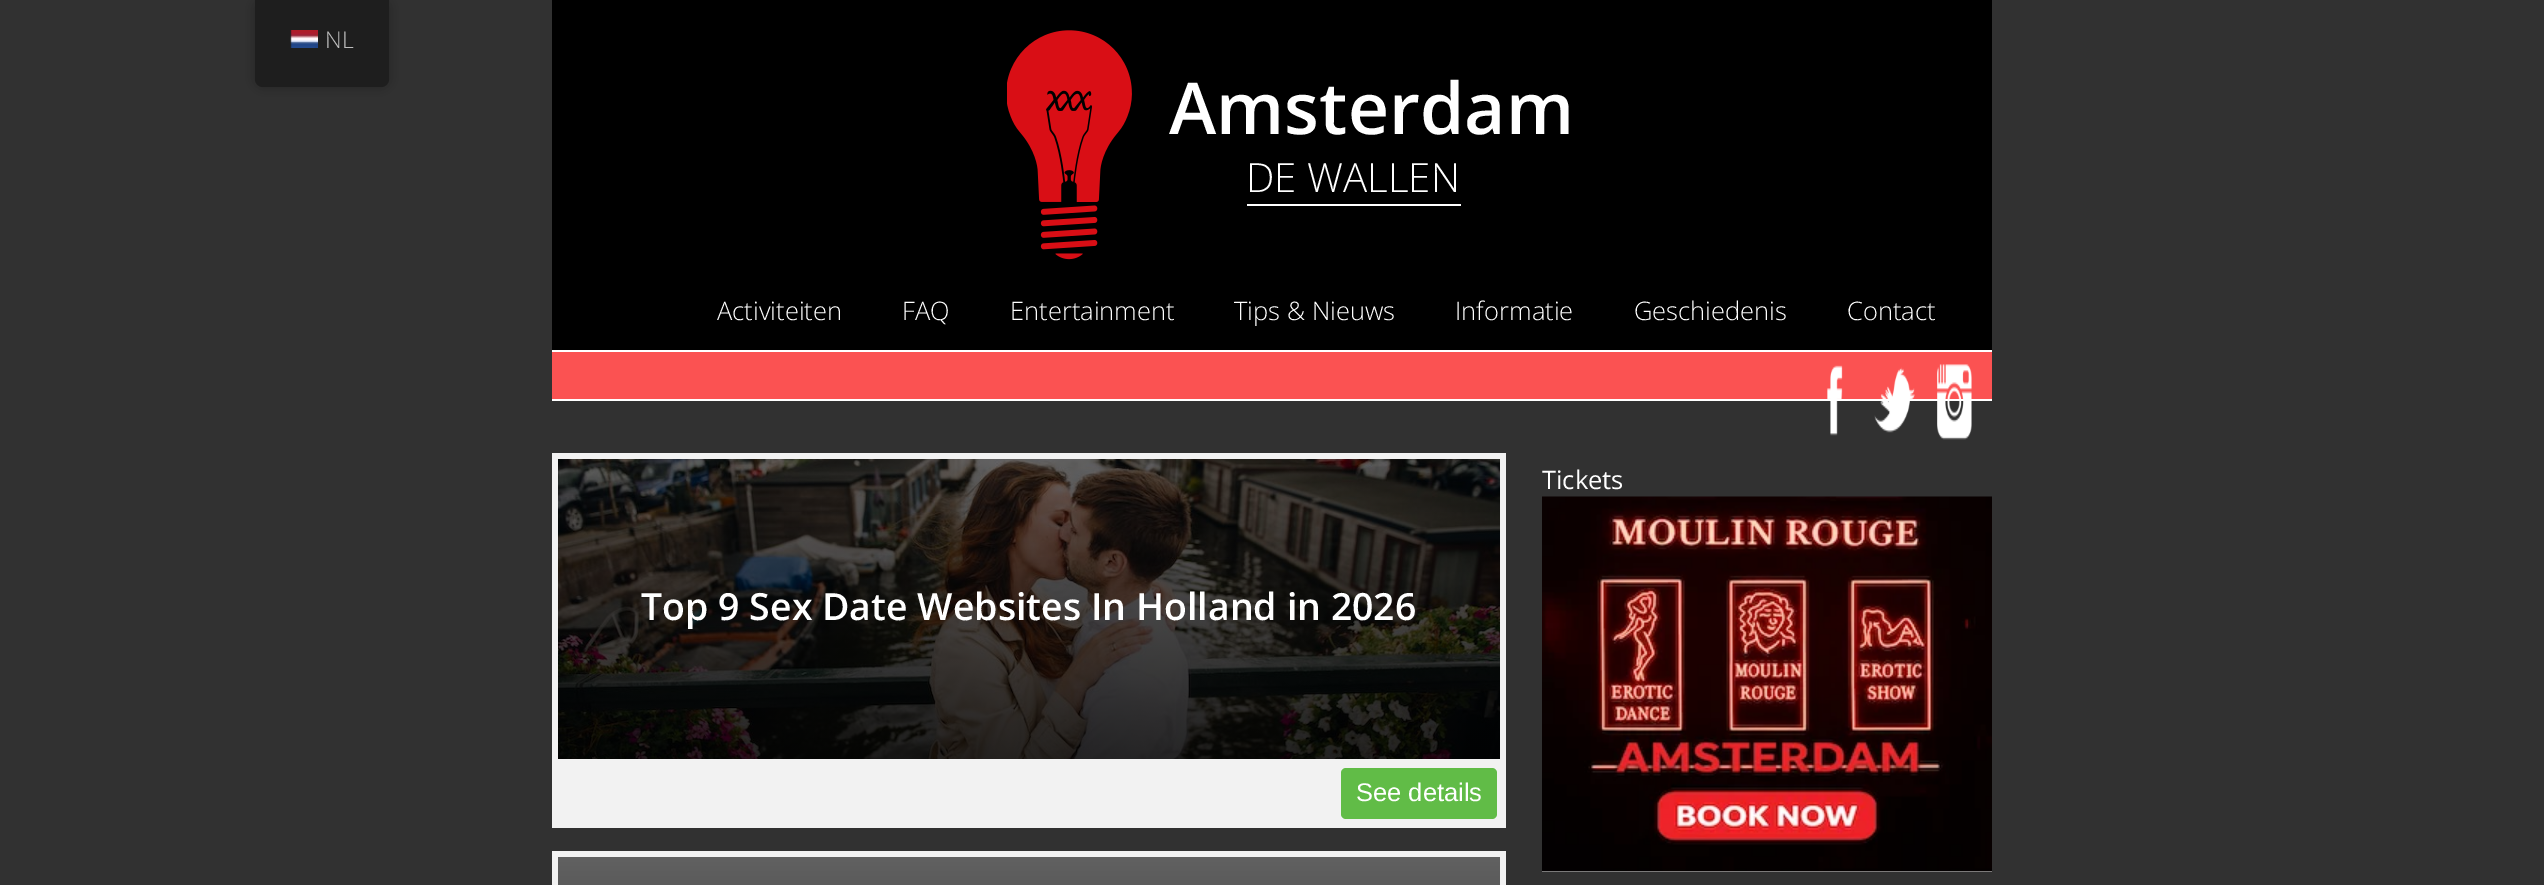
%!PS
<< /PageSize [2544 885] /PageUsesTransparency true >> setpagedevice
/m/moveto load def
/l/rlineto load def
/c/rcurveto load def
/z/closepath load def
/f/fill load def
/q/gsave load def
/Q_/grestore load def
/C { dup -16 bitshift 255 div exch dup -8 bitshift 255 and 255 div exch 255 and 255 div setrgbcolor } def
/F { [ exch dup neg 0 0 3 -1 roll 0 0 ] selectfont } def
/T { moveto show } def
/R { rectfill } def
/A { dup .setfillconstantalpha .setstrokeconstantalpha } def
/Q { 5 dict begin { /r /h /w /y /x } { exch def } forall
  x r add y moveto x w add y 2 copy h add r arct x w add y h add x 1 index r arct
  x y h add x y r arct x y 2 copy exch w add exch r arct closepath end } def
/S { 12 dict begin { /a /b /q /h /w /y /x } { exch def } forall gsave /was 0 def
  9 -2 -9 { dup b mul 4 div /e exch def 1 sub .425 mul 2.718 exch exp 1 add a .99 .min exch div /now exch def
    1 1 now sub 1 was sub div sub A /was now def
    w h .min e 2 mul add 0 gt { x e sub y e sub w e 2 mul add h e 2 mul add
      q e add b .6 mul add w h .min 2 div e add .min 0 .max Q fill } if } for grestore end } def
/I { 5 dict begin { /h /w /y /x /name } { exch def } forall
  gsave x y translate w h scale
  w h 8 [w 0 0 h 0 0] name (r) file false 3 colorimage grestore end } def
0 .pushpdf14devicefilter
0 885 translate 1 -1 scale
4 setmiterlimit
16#313131 C
0 0 2544 885 R
16#000000 C
255 0 134 87 8 6 .25 S
16#1E1E1E C
255 0 m 134 0 l 0 79 l 0 4.5 -3.5 8 -8 8 c -118 0 l -4.5 0 -8 -3.5 -8 -8 c z f
(1.rgb) 290 30 28 18 I
/OpenSans-Light 23 F
16#BDBDBD C
(NL) 325 48 T
16#000000 C
552 0 1440 350 R
16#FFFFFF C
552 350 1440 2 R
(2.rgb) 1007 30 125 230 I
/OpenSans-SemiBold 71.5 F
(Amsterdam) 1169 134 T
/OpenSans-Light 40.25 F
(DE WALLEN) 1246 192 T
1247 204 214 2 R
/OpenSans-Light 25.5 F
(Activiteiten) 717 320 T
(FAQ) 902 320 T
(Entertainment) 1010 320 T
(Tips & Nieuws) 1234 320 T
(Informatie) 1455 320 T
(Geschiedenis) 1634 320 T
(Contact) 1847 320 T
16#FB5252 C
552 352 1440 47 R
16#FFFFFF C
552 399 1440 2 R
(3.rgb) 1827 365 16 71 I
(4.rgb) 1874 367 41 66 I
(5.rgb) 1937 364 35 76 I
/OpenSans-Regular 25.5 F
(Tickets) 1542 489 T
16#F2F2F2 C
1542 871 450 1 R
(6.rgb) 1542 496 450 376 I
552 453 954 375 R
(7.rgb) 558 459 942 300 I
/OpenSans-SemiBold 37.5 F
16#FFFFFF C
(Top 9 Sex Date Websites In Holland in 2026) 641 620 T
16#61BC47 C
1341 768 156 51 5 Q f
/LiberationSans-Regular 25.5 F
16#FFFFFF C
(See details) 1356 801 T
16#F2F2F2 C
552 851 954 34 R
q 558 857 m 942 0 l 0 28 l -942 0 l z clip newpath
<< /ShadingType 2 /ColorSpace /DeviceRGB /Coords [1029 857 1029 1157] /Extend [true true] /Function << /FunctionType 2 /Domain [0 1] /C0 [.38 .38 .38] /C1 [.141 .141 .141] /N 1 >> >> shfill Q_
.poppdf14devicefilter showpage
